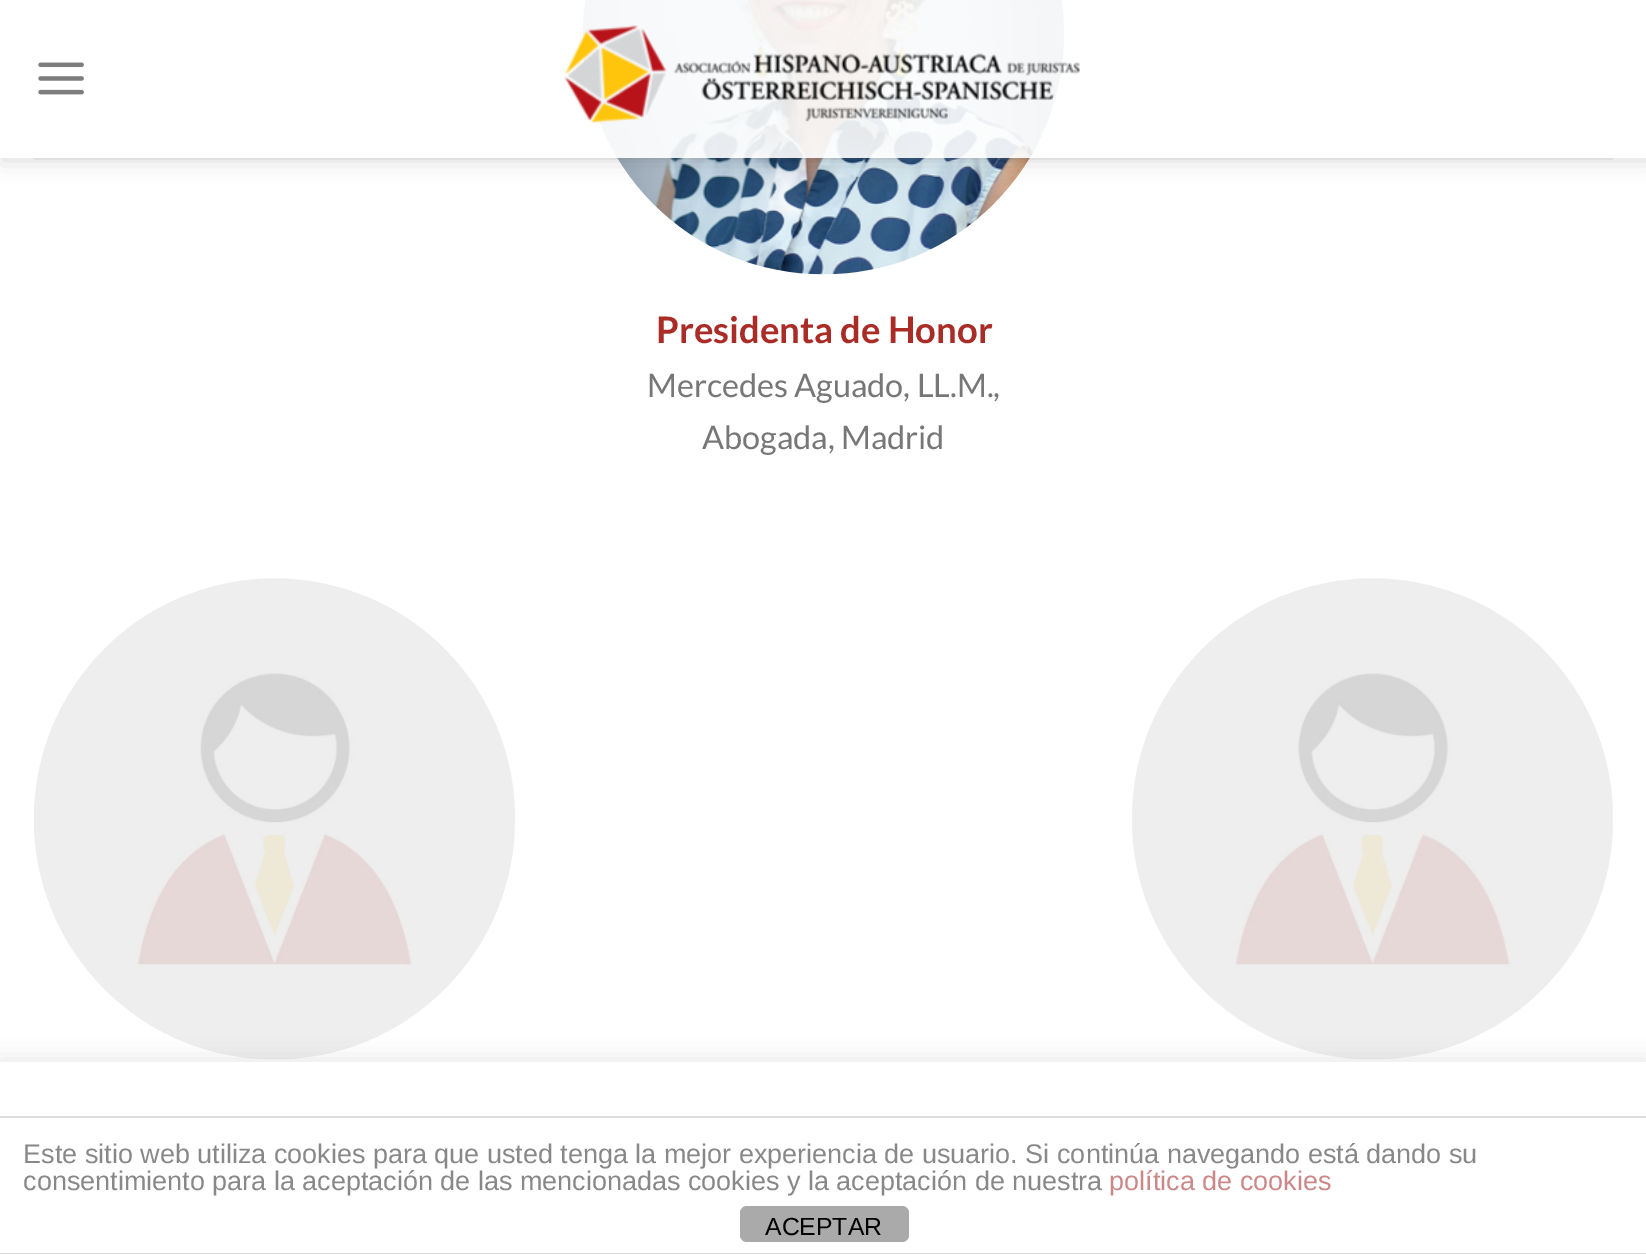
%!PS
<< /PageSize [1646 1254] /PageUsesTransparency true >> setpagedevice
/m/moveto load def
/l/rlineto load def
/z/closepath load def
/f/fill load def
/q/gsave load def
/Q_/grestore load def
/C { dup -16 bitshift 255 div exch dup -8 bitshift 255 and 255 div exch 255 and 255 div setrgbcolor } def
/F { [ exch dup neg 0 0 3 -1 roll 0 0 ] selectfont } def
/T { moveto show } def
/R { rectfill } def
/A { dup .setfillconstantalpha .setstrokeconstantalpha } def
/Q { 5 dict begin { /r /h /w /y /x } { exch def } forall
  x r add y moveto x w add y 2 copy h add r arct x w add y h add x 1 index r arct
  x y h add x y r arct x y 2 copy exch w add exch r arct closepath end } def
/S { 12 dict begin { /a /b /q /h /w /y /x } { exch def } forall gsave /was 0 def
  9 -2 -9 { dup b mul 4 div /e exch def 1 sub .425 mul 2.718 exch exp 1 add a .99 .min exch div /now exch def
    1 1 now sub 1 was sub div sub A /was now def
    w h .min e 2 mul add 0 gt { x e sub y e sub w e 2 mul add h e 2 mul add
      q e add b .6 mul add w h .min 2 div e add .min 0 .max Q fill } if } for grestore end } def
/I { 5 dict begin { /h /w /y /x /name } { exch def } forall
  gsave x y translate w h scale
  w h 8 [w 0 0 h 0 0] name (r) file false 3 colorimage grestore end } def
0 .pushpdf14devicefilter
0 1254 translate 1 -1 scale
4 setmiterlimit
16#FFFFFF C
0 0 1646 1254 R
(3.rgb) 583 0 482 275 I
q
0 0 m 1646 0 l 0 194 l -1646 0 l z 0 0 m 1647 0 l 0 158 l -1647 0 l z eoclip newpath
16#000000 C
2 2 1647 158 0 11 .15 S
Q_
0.9 A
0 0 1646 158 R
1 A
(1.rgb) 38 62 46 33 I
(2.rgb) 564 25 516 98 I
0.1 A
16#777777 C
34 158 1579 2 R
/Lato-Bold 36.5 F
1 A
16#AA2C26 C
(Presidenta de Honor) 656 343 T
/Lato-Regular 32.4 F
16#777777 C
(Mercedes Aguado, LL.M.,) 647 397 T
(Abogada, Madrid) 702 449 T
(4.rgb) 34 578 481 482 I
(5.rgb) 1132 578 481 482 I
16#ACABAB C
0 1060 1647 193 0 11 .3 S
16#FFFFFF C
0 1062 1646 54 R
0 1118 1646 135 R
16#DDDDDD C
0 1116 1646 2 R
0 1253 1646 1 R
/LiberationSans-Regular 27 F
16#888888 C
(Este sitio web utiliza cookies para que usted tenga la mejor experiencia de usuario. Si continúa navegando está dando su) 23 1163 T
(consentimiento para la aceptación de las mencionadas cookies y la aceptación de nuestra) 23 1190 T
16#CC8888 C
(política de cookies) 1109 1190 T
16#AAAAAA C
740 1206 169 36 7 Q f
/LiberationSans-Regular 24.75 F
16#000000 C
(ACEPTAR) 765 1235 T
.poppdf14devicefilter showpage
